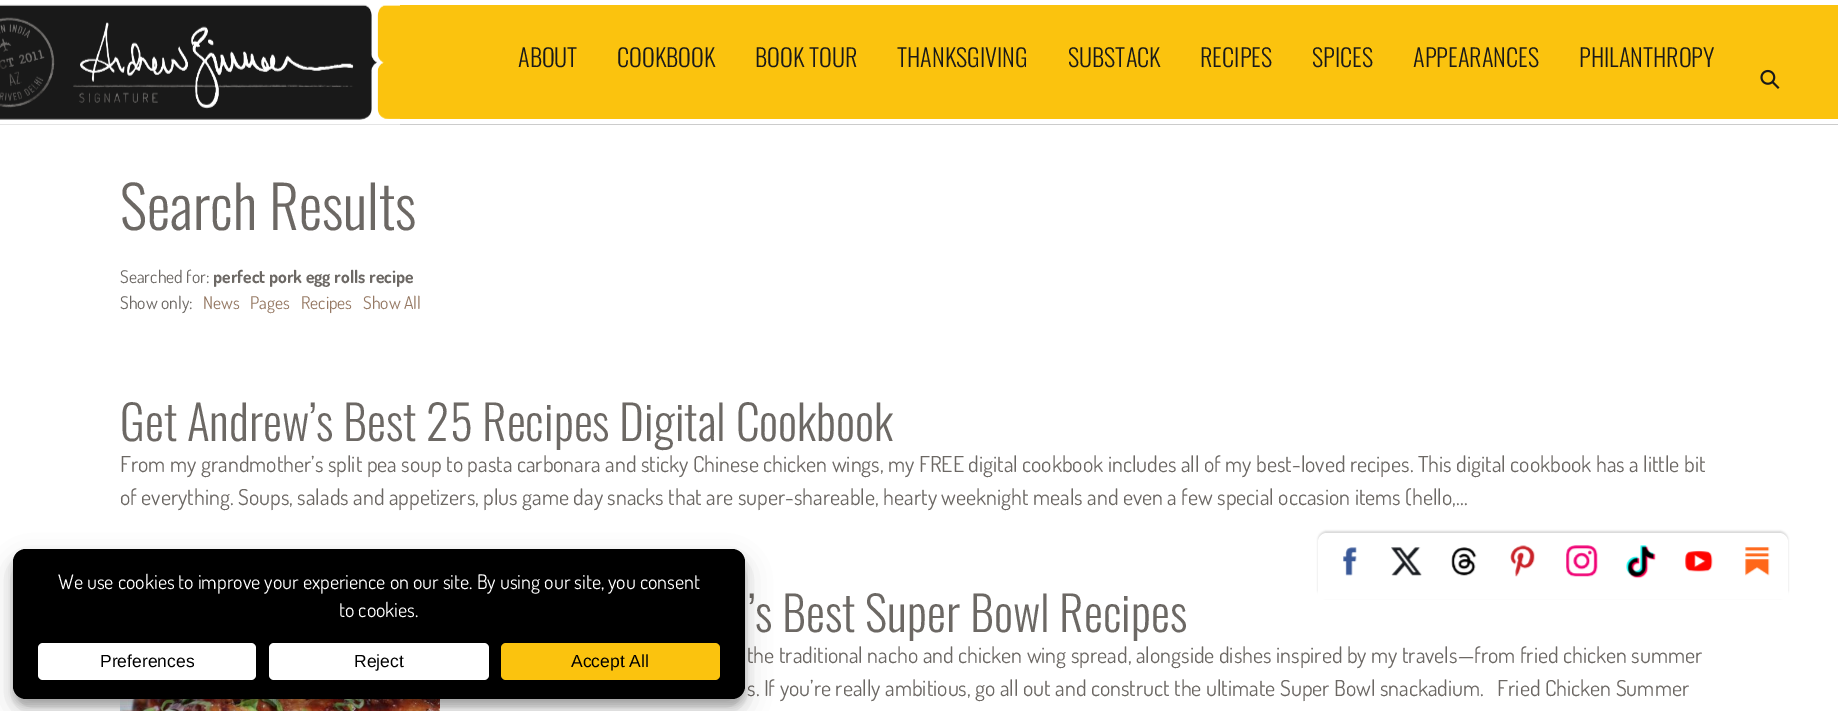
%!PS
<< /PageSize [1838 711] /PageUsesTransparency true >> setpagedevice
/m/moveto load def
/l/rlineto load def
/c/rcurveto load def
/z/closepath load def
/f/fill load def
/C { dup -16 bitshift 255 div exch dup -8 bitshift 255 and 255 div exch 255 and 255 div setrgbcolor } def
/F { [ exch dup neg 0 0 3 -1 roll 0 0 ] selectfont } def
/T { moveto show } def
/R { rectfill } def
/A { dup .setfillconstantalpha .setstrokeconstantalpha } def
/Q { 5 dict begin { /r /h /w /y /x } { exch def } forall
  x r add y moveto x w add y 2 copy h add r arct x w add y h add x 1 index r arct
  x y h add x y r arct x y 2 copy exch w add exch r arct closepath end } def
/S { 12 dict begin { /a /b /q /h /w /y /x } { exch def } forall gsave /was 0 def
  9 -2 -9 { dup b mul 4 div /e exch def 1 sub .425 mul 2.718 exch exp 1 add a .99 .min exch div /now exch def
    1 1 now sub 1 was sub div sub A /was now def
    w h .min e 2 mul add 0 gt { x e sub y e sub w e 2 mul add h e 2 mul add
      q e add b .6 mul add w h .min 2 div e add .min 0 .max Q fill } if } for grestore end } def
/I { 5 dict begin { /h /w /y /x /name } { exch def } forall
  gsave x y translate w h scale
  w h 8 [w 0 0 h 0 0] name (r) file false 3 colorimage grestore end } def
0 .pushpdf14devicefilter
0 711 translate 1 -1 scale
4 setmiterlimit
16#FFFFFF C
0 0 1838 711 R
16#FBC30E C
377 5 1461 114 R
16#CCCCCC C
0 124 1838 1 R
(1.rgb) 0 4 400 121 I
/Oswald-Light 24.25 F
16#191919 C
(ABOUT) 518 67 T
(COOKBOOK) 617 67 T
(BOOK TOUR) 755 67 T
(THANKSGIVING) 897 67 T
(SUBSTACK) 1068 67 T
(RECIPES) 1200 67 T
(SPICES) 1312 67 T
(APPEARANCES) 1413 67 T
(PHILANTHROPY) 1579 67 T
(2.rgb) 1760 69 20 20 I
16#000000 C
1318 531 470 67 9 1 .15 S
16#FFFFFF C
1327 533 m 452 0 l 5 0 9 4 9 9 c 0 57 l -470 0 l 0 -57 l 0 -5 4 -9 9 -9 c z f
(3.rgb) 1343 547 14 29 I
(4.rgb) 1391 547 31 29 I
(5.rgb) 1451 547 26 29 I
(6.rgb) 1510 545 25 32 I
(7.rgb) 1566 545 32 32 I
(8.rgb) 1626 545 30 34 I
(9.rgb) 1685 550 28 22 I
(10.rgb) 1745 547 25 29 I
/Oswald-Light 58.5 F
16#6C6864 C
(Search Results) 120 230 T
/Dosis-Regular 17.6 F
(Searched for:) 120 283 T
/Dosis-Bold 17.6 F
(perfect pork egg rolls recipe) 213 283 T
/Dosis-Regular 17.6 F
(Show only:) 120 309 T
16#967964 C
(News) 203 309 T
(Pages) 250 309 T
(Recipes) 301 309 T
(Show All) 363 309 T
/Oswald-Light 47.7 F
16#6C6864 C
(Get Andrew’s Best 25 Recipes Digital Cookbook) 120 441 T
/Dosis-Regular 22 F
(From my grandmother’s split pea soup to pasta carbonara and sticky Chinese chicken wings, my FREE digital cookbook includes all of my best-loved recipes. This digital cookbook has a little bit) 120 472 T
(of everything. Soups, salads and appetizers, plus game day snacks that are super-shareable, hearty weeknight meals and even a few special occasion items \(hello,…) 120 505 T
/Oswald-Light 47.7 F
(’s Best Super Bowl Recipes) 748 632 T
(11.rgb) 120 699 320 12 I
/Dosis-Regular 22 F
(the traditional nacho and chicken wing spread, alongside dishes inspired by my travels—from fried chicken summer) 747 663 T
(s. If you’re really ambitious, go all out and construct the ultimate Super Bowl snackadium.   Fried Chicken Summer) 747 696 T
16#000000 C
13 556 732 150 13 4 .23 S
13 561 732 150 13 12.5 .19 S
13 549 732 150 13 Q f
/Dosis-Regular 20 F
16#FFFFFF C
(We use cookies to improve your experience on our site. By using our site, you consent) 58 589 T
(to cookies.) 339 617 T
38 643 218 37 5 Q f
/LiberationSans-Regular 17.5 F
16#000000 C
(Preferences) 100 667 T
16#FFFFFF C
269 643 220 37 5 Q f
16#000000 C
(Reject) 354 667 T
16#FBC30E C
501 643 219 37 5 Q f
16#000000 C
(Accept All) 571 667 T
.poppdf14devicefilter showpage
